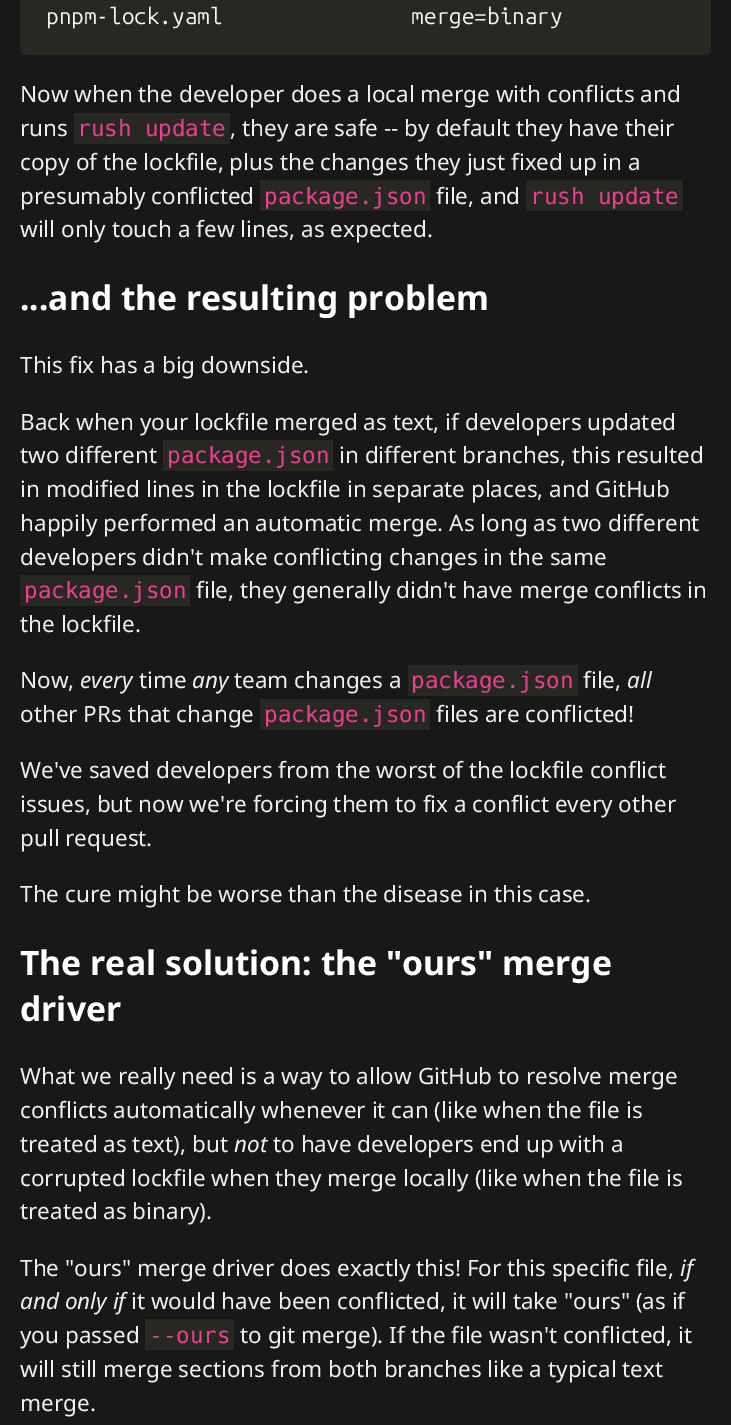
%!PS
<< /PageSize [731 1425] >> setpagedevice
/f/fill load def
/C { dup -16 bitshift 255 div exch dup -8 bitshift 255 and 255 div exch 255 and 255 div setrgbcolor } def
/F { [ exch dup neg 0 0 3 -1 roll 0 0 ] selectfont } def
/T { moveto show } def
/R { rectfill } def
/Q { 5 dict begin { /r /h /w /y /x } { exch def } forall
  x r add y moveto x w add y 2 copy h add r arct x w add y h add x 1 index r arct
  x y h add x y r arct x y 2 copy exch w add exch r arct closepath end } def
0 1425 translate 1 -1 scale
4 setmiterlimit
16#181818 C
0 0 731 1425 R
16#272822 C
20 -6 691 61 6 Q f
/UbuntuMono-Regular 22.5 F
16#F8F8F2 C
(pnpm-lock.yaml               merge=binary) 46 24 T
/NotoSans-Regular 22.5 F
16#F0F0F0 C
(Now when the developer does a local merge with conflicts and) 20 102 T
(runs) 20 136 T
16#282823 C
74 113 156 31 R
/DejaVuSansMono-Regular 22.5 F
16#ED3D94 C
(rush update) 77 136 T
/NotoSans-Regular 22.5 F
16#F0F0F0 C
(, they are safe -- by default they have their) 230 136 T
(copy of the lockfile, plus the changes they just fixed up in a) 20 170 T
(presumably conflicted) 20 204 T
16#282823 C
260 180 170 31 R
/DejaVuSansMono-Regular 22.5 F
16#ED3D94 C
(package.json) 264 204 T
/NotoSans-Regular 22.5 F
16#F0F0F0 C
(file, and) 436 204 T
16#282823 C
526 180 157 31 R
/DejaVuSansMono-Regular 22.5 F
16#ED3D94 C
(rush update) 530 204 T
/NotoSans-Regular 22.5 F
16#F0F0F0 C
(will only touch a few lines, as expected.) 20 237 T
/NotoSans-Bold 33.75 F
16#FFFFFF C
(...and the resulting problem) 20 310 T
/NotoSans-Regular 22.5 F
16#F0F0F0 C
(This fix has a big downside.) 20 373 T
(Back when your lockfile merged as text, if developers updated) 20 430 T
(two different) 20 463 T
16#282823 C
163 440 170 31 R
/DejaVuSansMono-Regular 22.5 F
16#ED3D94 C
(package.json) 167 463 T
/NotoSans-Regular 22.5 F
16#F0F0F0 C
(in different branches, this resulted) 339 463 T
(in modified lines in the lockfile in separate places, and GitHub) 20 497 T
(happily performed an automatic merge. As long as two different) 20 531 T
(developers didn't make conflicting changes in the same) 20 565 T
16#282823 C
20 575 170 31 R
/DejaVuSansMono-Regular 22.5 F
16#ED3D94 C
(package.json) 24 598 T
/NotoSans-Regular 22.5 F
16#F0F0F0 C
(file, they generally didn't have merge conflicts in) 196 598 T
(the lockfile.) 20 632 T
(Now,) 20 688 T
/NotoSans-Italic 22.5 F
(every) 80 688 T
/NotoSans-Regular 22.5 F
(time) 139 688 T
/NotoSans-Italic 22.5 F
(any) 192 688 T
/NotoSans-Regular 22.5 F
(team changes a) 234 688 T
16#282823 C
408 665 170 31 R
/DejaVuSansMono-Regular 22.5 F
16#ED3D94 C
(package.json) 411 688 T
/NotoSans-Regular 22.5 F
16#F0F0F0 C
(file,) 583 688 T
/NotoSans-Italic 22.5 F
(all) 627 688 T
/NotoSans-Regular 22.5 F
(other PRs that change) 20 722 T
16#282823 C
260 699 170 31 R
/DejaVuSansMono-Regular 22.5 F
16#ED3D94 C
(package.json) 264 722 T
/NotoSans-Regular 22.5 F
16#F0F0F0 C
(files are conflicted!) 436 722 T
(We've saved developers from the worst of the lockfile conflict) 20 778 T
(issues, but now we're forcing them to fix a conflict every other) 20 812 T
(pull request.) 20 846 T
(The cure might be worse than the disease in this case.) 20 902 T
/NotoSans-Bold 33.75 F
16#FFFFFF C
(The real solution: the "ours" merge) 20 975 T
(driver) 20 1021 T
/NotoSans-Regular 22.5 F
16#F0F0F0 C
(What we really need is a way to allow GitHub to resolve merge) 20 1084 T
(conflicts automatically whenever it can \(like when the file is) 20 1118 T
(treated as text\), but) 20 1152 T
/NotoSans-Italic 22.5 F
(not) 234 1152 T
/NotoSans-Regular 22.5 F
(to have developers end up with a) 273 1152 T
(corrupted lockfile when they merge locally \(like when the file is) 20 1186 T
(treated as binary\).) 20 1219 T
(The "ours" merge driver does exactly this! For this specific file,) 20 1276 T
/NotoSans-Italic 22.5 F
(if) 680 1276 T
(and only if) 20 1309 T
/NotoSans-Regular 22.5 F
(it would have been conflicted, it will take "ours" \(as if) 131 1309 T
(you passed) 20 1343 T
16#282823 C
145 1319 89 31 R
/DejaVuSansMono-Regular 22.5 F
16#ED3D94 C
(--ours) 149 1343 T
/NotoSans-Regular 22.5 F
16#F0F0F0 C
(to git merge\). If the file wasn't conflicted, it) 240 1343 T
(will still merge sections from both branches like a typical text) 20 1377 T
(merge.) 20 1411 T
showpage
